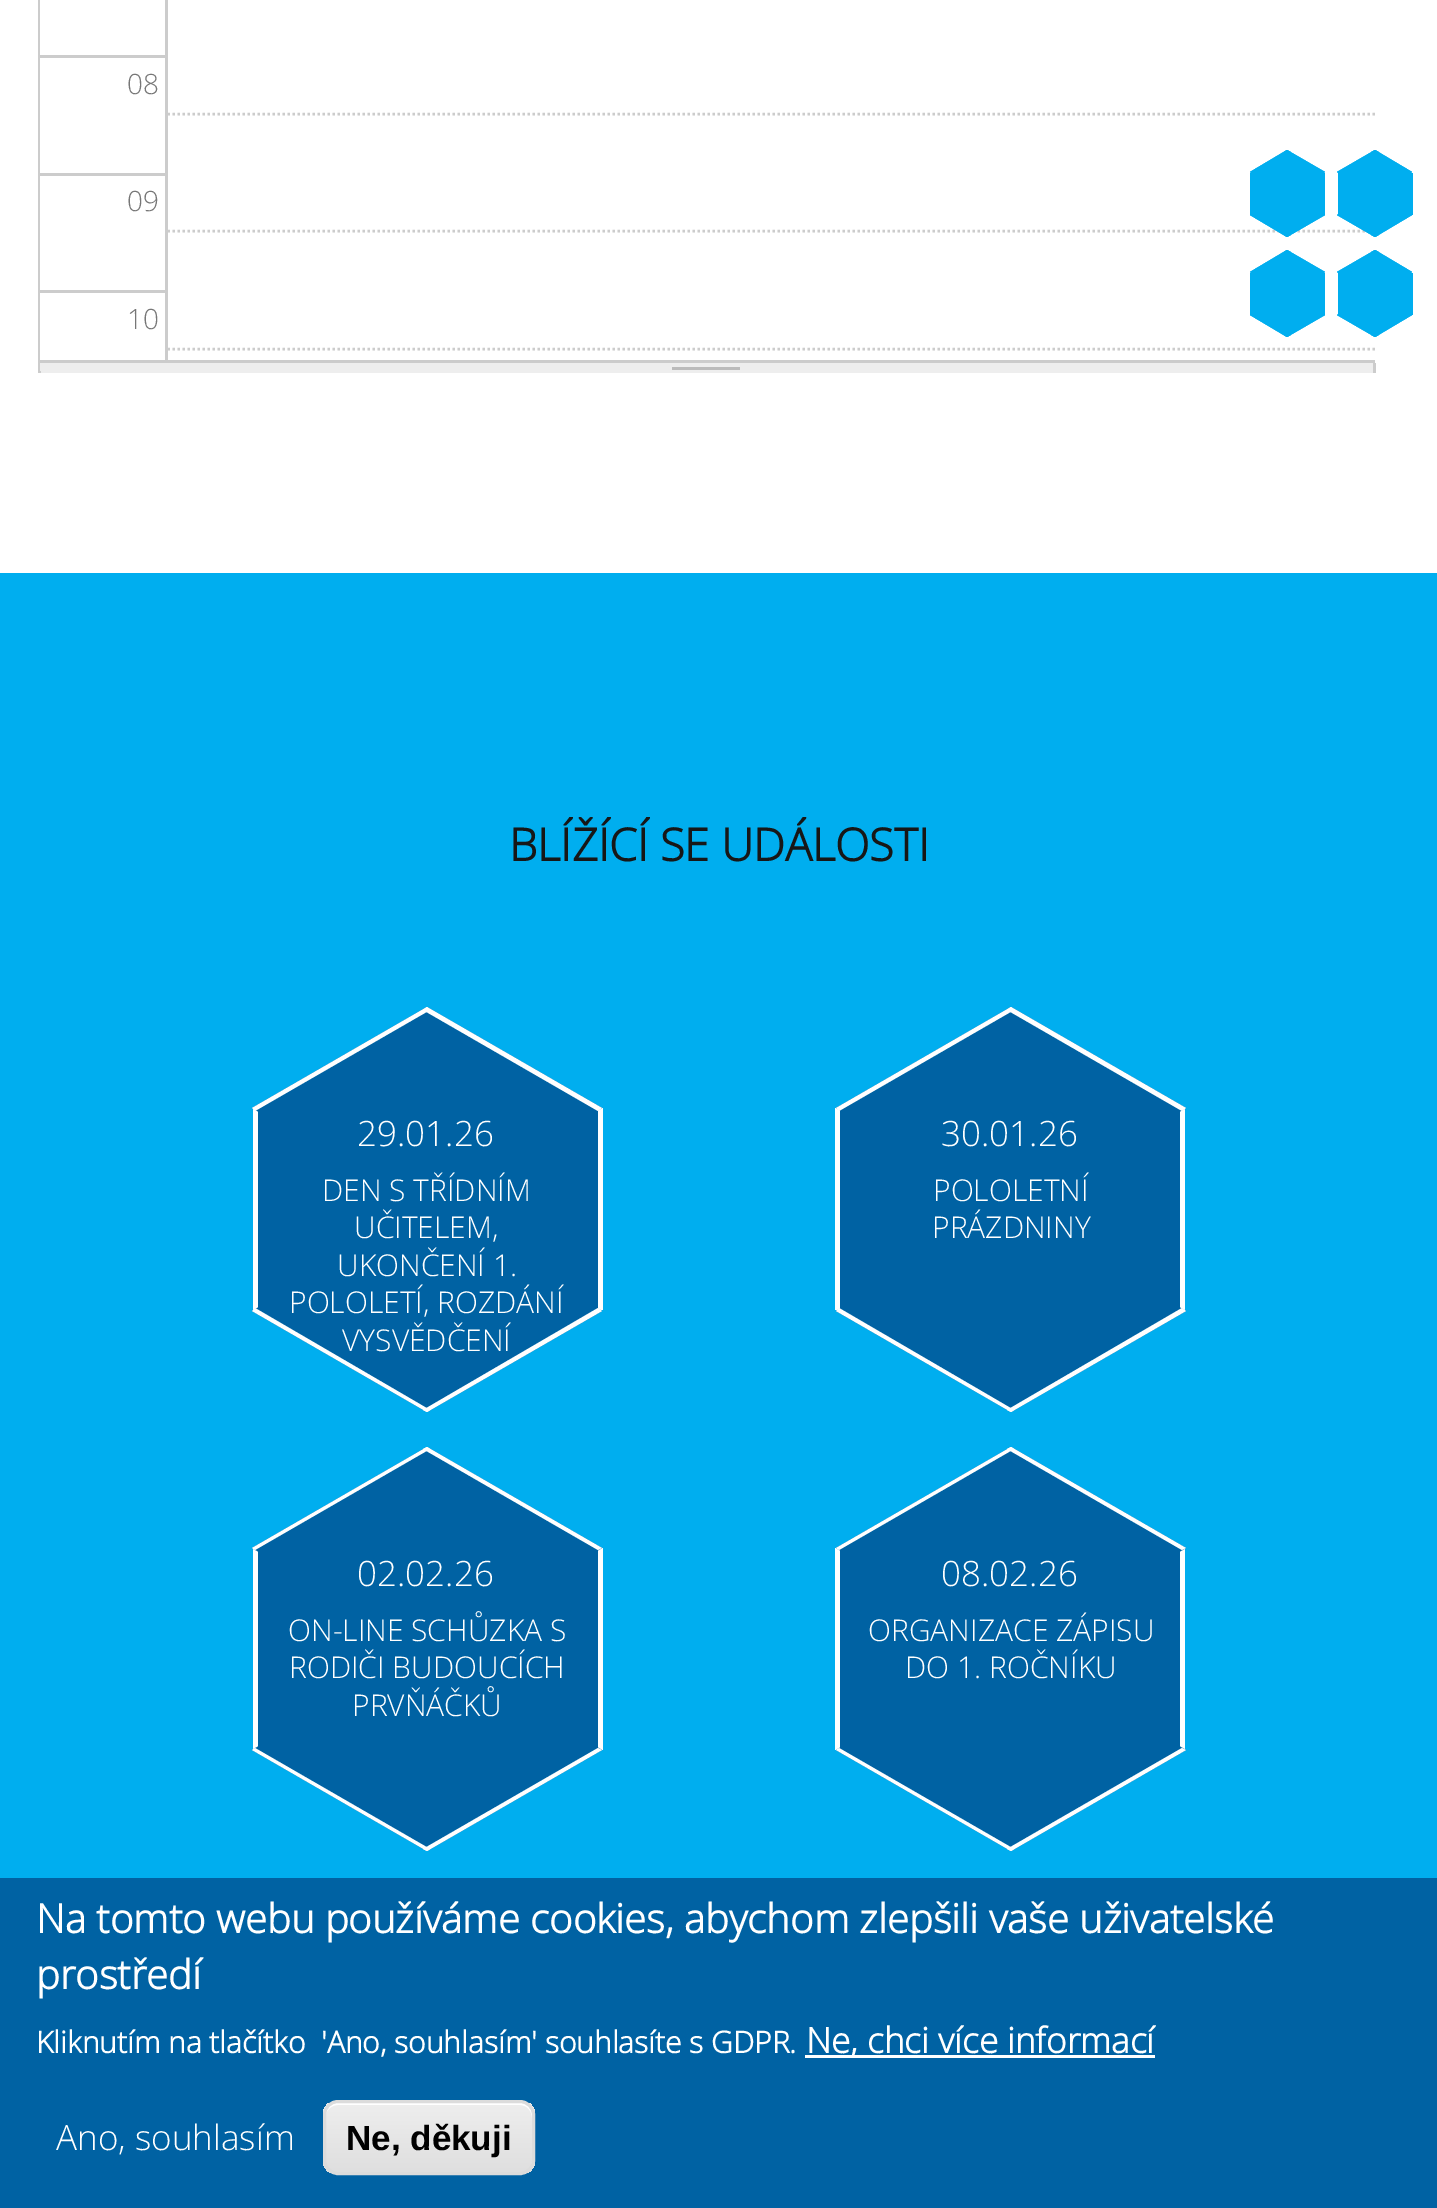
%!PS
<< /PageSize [1437 2208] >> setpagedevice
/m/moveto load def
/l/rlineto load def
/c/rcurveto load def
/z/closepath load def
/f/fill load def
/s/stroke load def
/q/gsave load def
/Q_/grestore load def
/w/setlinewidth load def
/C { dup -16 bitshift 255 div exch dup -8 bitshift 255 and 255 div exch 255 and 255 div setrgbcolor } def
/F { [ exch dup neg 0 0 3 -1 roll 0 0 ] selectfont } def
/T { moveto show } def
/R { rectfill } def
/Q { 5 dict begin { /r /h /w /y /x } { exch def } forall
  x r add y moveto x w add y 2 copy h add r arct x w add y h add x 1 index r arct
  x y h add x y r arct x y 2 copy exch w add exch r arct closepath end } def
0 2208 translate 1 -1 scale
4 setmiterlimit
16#FFFFFF C
0 0 1437 2208 R
16#CCCCCC C
38 360 1337 3 R
38 0 3 363 R
16#FFFFFF C
40 0 1 360 R
16#CCCCCC C
40 55 125 3 R
/OpenSans-Light 28 F
16#777777 C
(08) 127 94 T
16#CCCCCC C
40 173 125 3 R
16#777777 C
(09) 127 211 T
16#CCCCCC C
40 290 125 3 R
16#777777 C
(10) 127 329 T
16#CCCCCC C
165 0 3 360 R
2.5 w
[2.5 2.5] 0 setdash
167.5 114 m 1207.5 0 l s
167.5 231 m 1207.5 0 l s
167.5 349 m 1207.5 0 l s
16#EEEEEE C
41 371 1332 2 R
16#CCCCCC C
1373 363 3 10 R
38 363 3 10 R
16#EEEEEE C
40 363 1333 8 R
16#BBBBBB C
672 367 68 3 R
16#00AEEF C
1250 173 75 42 R
1250 172 m 37 -22 l 38 22 l -38 21 l z f
1250 172 m 37 -22 l 4 2 l -37 22 l z f
1284 152 m 3 -2 l 38 22 l -4 2 l z f
1250 215 m 37 -22 l 38 22 l -38 22 l z f
1284 235 m 37 -22 l 4 2 l -38 22 l z f
1250 215 m 4 -2 l 37 22 l -4 2 l z f
1338 173 75 42 R
1337 172 m 38 -22 l 37 22 l -37 21 l z f
1337 172 m 38 -22 l 4 2 l -38 22 l z f
1371 152 m 4 -2 l 37 22 l -3 2 l z f
1337 215 m 38 -22 l 37 22 l -37 22 l z f
1371 235 m 38 -22 l 3 2 l -37 22 l z f
1337 215 m 4 -2 l 38 22 l -4 2 l z f
1250 273 75 42 R
1250 272 m 37 -22 l 38 22 l -38 21 l z f
1250 272 m 37 -22 l 4 2 l -37 22 l z f
1284 252 m 3 -2 l 38 22 l -4 2 l z f
1250 315 m 37 -22 l 38 22 l -38 22 l z f
1284 335 m 37 -22 l 4 2 l -38 22 l z f
1250 315 m 4 -2 l 37 22 l -4 2 l z f
1338 273 75 42 R
1337 272 m 38 -22 l 37 22 l -37 21 l z f
1337 272 m 38 -22 l 4 2 l -38 22 l z f
1371 252 m 4 -2 l 37 22 l -3 2 l z f
1337 315 m 38 -22 l 37 22 l -37 22 l z f
1371 335 m 38 -22 l 3 2 l -37 22 l z f
1337 315 m 4 -2 l 38 22 l -4 2 l z f
0 573 1437 1305 R
/OpenSans-Bold 45 F
16#171717 C
(BLÍŽÍCÍ SE UDÁLOSTI) 509 861 T
16#0062A3 C
258 1110 340 199 R
16#FFFFFF C
598 1108 5 202 R
253 1108 5 202 R
16#0062A3 C
252 1108 m 175 -101 l 175 101 l -175 102 l z f
16#FFFFFF C
252 1108 m 175 -101 l 3 3 l -175 101 l z f
423 1010 m 4 -3 l 175 101 l -4 3 l z f
/OpenSans-Light 35 F
(29.01.26) 357 1146 T
/OpenSans-Light 30 F
(DEN S TŘÍDNÍM) 322 1201 T
16#0062A3 C
252 1311 m 175 -102 l 175 102 l -175 101 l z f
16#FFFFFF C
(UČITELEM,) 354 1238 T
(UKONČENÍ 1.) 337 1276 T
423 1410 m 175 -102 l 4 3 l -175 101 l z f
252 1311 m 3 -3 l 175 102 l -3 2 l z f
(POLOLETÍ, ROZDÁNÍ) 289 1313 T
(VYSVĚDČENÍ) 342 1351 T
16#0062A3 C
840 1110 340 199 R
16#FFFFFF C
1180 1108 5 202 R
835 1108 5 202 R
16#0062A3 C
836 1108 m 175 -101 l 175 101 l -175 102 l z f
16#FFFFFF C
836 1108 m 175 -101 l 3 3 l -175 101 l z f
1007 1010 m 4 -3 l 175 101 l -4 3 l z f
/OpenSans-Light 35 F
(30.01.26) 941 1146 T
/OpenSans-Light 30 F
(POLOLETNÍ) 933 1201 T
16#0062A3 C
836 1311 m 175 -102 l 175 102 l -175 101 l z f
16#FFFFFF C
(PRÁZDNINY) 932 1238 T
1007 1410 m 175 -102 l 4 3 l -175 101 l z f
836 1311 m 3 -3 l 175 102 l -3 2 l z f
16#0062A3 C
258 1550 340 198 R
16#FFFFFF C
598 1548 5 202 R
253 1548 5 202 R
16#0062A3 C
252 1548 m 175 -101 l 175 101 l -175 101 l z f
16#FFFFFF C
252 1548 m 175 -101 l 3 2 l -175 101 l z f
423 1449 m 4 -2 l 175 101 l -4 2 l z f
/OpenSans-Light 35 F
(02.02.26) 357 1586 T
/OpenSans-Light 30 F
(ON-LINE SCHŮZKA S) 288 1641 T
16#0062A3 C
252 1750 m 175 -101 l 175 101 l -175 101 l z f
16#FFFFFF C
(RODIČI BUDOUCÍCH) 289 1678 T
(PRVŇÁČKŮ) 352 1716 T
423 1849 m 175 -101 l 4 2 l -175 101 l z f
252 1750 m 3 -2 l 175 101 l -3 2 l z f
16#0062A3 C
840 1550 340 198 R
16#FFFFFF C
1180 1548 5 202 R
835 1548 5 202 R
16#0062A3 C
836 1548 m 175 -101 l 175 101 l -175 101 l z f
16#FFFFFF C
836 1548 m 175 -101 l 3 2 l -175 101 l z f
1007 1449 m 4 -2 l 175 101 l -4 2 l z f
/OpenSans-Light 35 F
(08.02.26) 941 1586 T
/OpenSans-Light 30 F
(ORGANIZACE ZÁPISU) 868 1641 T
16#0062A3 C
836 1750 m 175 -101 l 175 101 l -175 101 l z f
16#FFFFFF C
(DO 1. ROČNÍKU) 905 1678 T
1007 1849 m 175 -101 l 4 2 l -175 101 l z f
836 1750 m 3 -2 l 175 101 l -3 2 l z f
16#0062A3 C
0 1878 1437 330 R
/OpenSans-Bold 40 F
16#FFFFFF C
(Na tomto webu používáme cookies, abychom zlepšili vaše uživatelské) 36 1933 T
(prostředí) 36 1989 T
/OpenSans-Bold 30 F
(Kliknutím na tlačítko  'Ano, souhlasím' souhlasíte s GDPR.) 36 2053 T
805 2055 350 3 R
/OpenSans-Bold 35 F
(Ne, chci více informací) 806 2053 T
/OpenSans-Light 35 F
(Ano, souhlasím) 56 2150 T
q
323 2100 212 75 15 Q clip newpath
q 323 2103 m 212 0 l 0 70 l -212 0 l z clip newpath
<< /ShadingType 2 /ColorSpace /DeviceRGB /Coords [429 2103 429 2173] /Extend [true true] /Function << /FunctionType 3 /Domain [0 1] /Functions [<< /FunctionType 2 /Domain [0 1] /C0 [.929 .929 .929] /C1 [.929 .929 .929] /N 1 >> << /FunctionType 2 /Domain [0 1] /C0 [.929 .929 .929] /C1 [.875 .875 .875] /N 1 >>] /Bounds [.05] /Encode [0 1 0 1] >> >> shfill Q_
Q_
338 2105 m 182 0 l 7 0 12 6 12 13 c 0 44 l -1 4 l 1 -1 2 -4 2 -6 c 0 -44 l 0 -7 -6 -13 -13 -13 c -182 0 l -7 0 -13 6 -13 13 c 0 2 l 0 -7 6 -13 13 -13 c z f
16#DCDCDC C
3 w
[] 0 setdash
324.5 2101.5 209 72 13.5 Q s
/LiberationSans-Bold 35 F
16#000000 C
(Ne, děkuji) 346 2150 T
showpage
